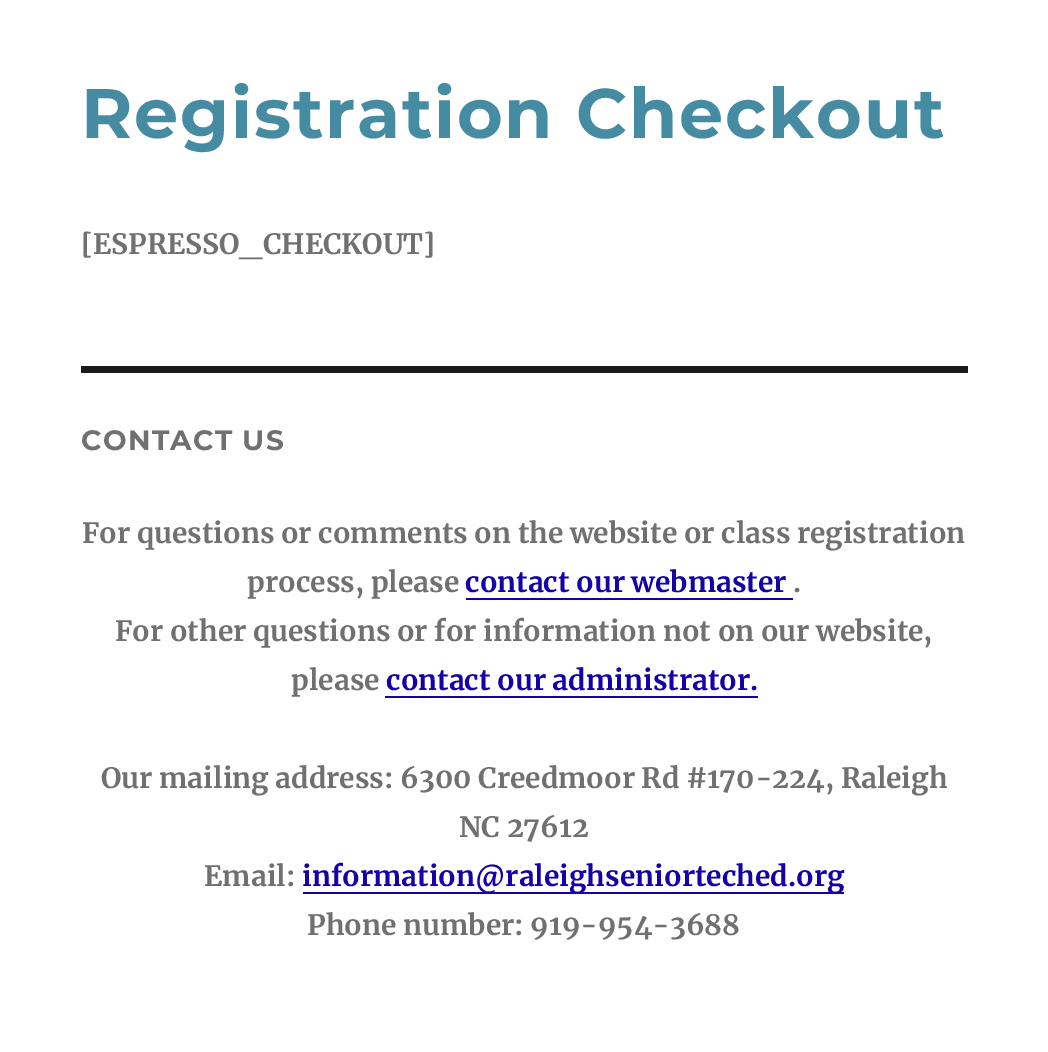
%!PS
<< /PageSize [1048 1052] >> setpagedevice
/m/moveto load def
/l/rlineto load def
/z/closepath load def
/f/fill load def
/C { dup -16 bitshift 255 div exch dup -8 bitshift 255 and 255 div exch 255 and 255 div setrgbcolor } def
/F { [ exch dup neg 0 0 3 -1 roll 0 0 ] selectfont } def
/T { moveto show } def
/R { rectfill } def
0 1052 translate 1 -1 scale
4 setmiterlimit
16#FFFFFF C
0 0 1048 1052 R
/Montserrat-Thin 70 F
16#458CA2 C
81 138 m 1.75 0 (Registration Checkout) ashow
/Merriweather-Bold 28 F
16#707070 C
([ESPRESSO_CHECKOUT]) 81 254 T
16#1A1A1A C
81 366 887 7 R
/Montserrat-Thin 28 F
16#707070 C
81 450 m 1.25 0 (CONTACT US) ashow
/Merriweather-Bold 28 F
(For questions or comments on the website or class registration) 82 543 T
(process, please) 247 592 T
16#1300A8 C
(contact our webmaster) 465 592 T
466 598 m 0 2 l 327 0 l 0 -35 l 0 33 l z f
16#707070 C
(.) 793 592 T
(For other questions or for information not on our website,) 115 641 T
(please) 291 690 T
16#1300A8 C
(contact our administrator.) 386 690 T
385 696 m 0 2 l 373 0 l 0 -35 l 0 33 l z f
16#707070 C
(Our mailing address: 6300 Creedmoor Rd #170-224, Raleigh) 101 788 T
(NC 27612) 459 837 T
(Email:) 204 886 T
16#1300A8 C
303 892 m 0 2 l 541 0 l 0 -35 l 0 33 l z f
(information@raleighseniorteched.org) 302 886 T
16#707070 C
(Phone number: 919-954-3688) 307 935 T
showpage
